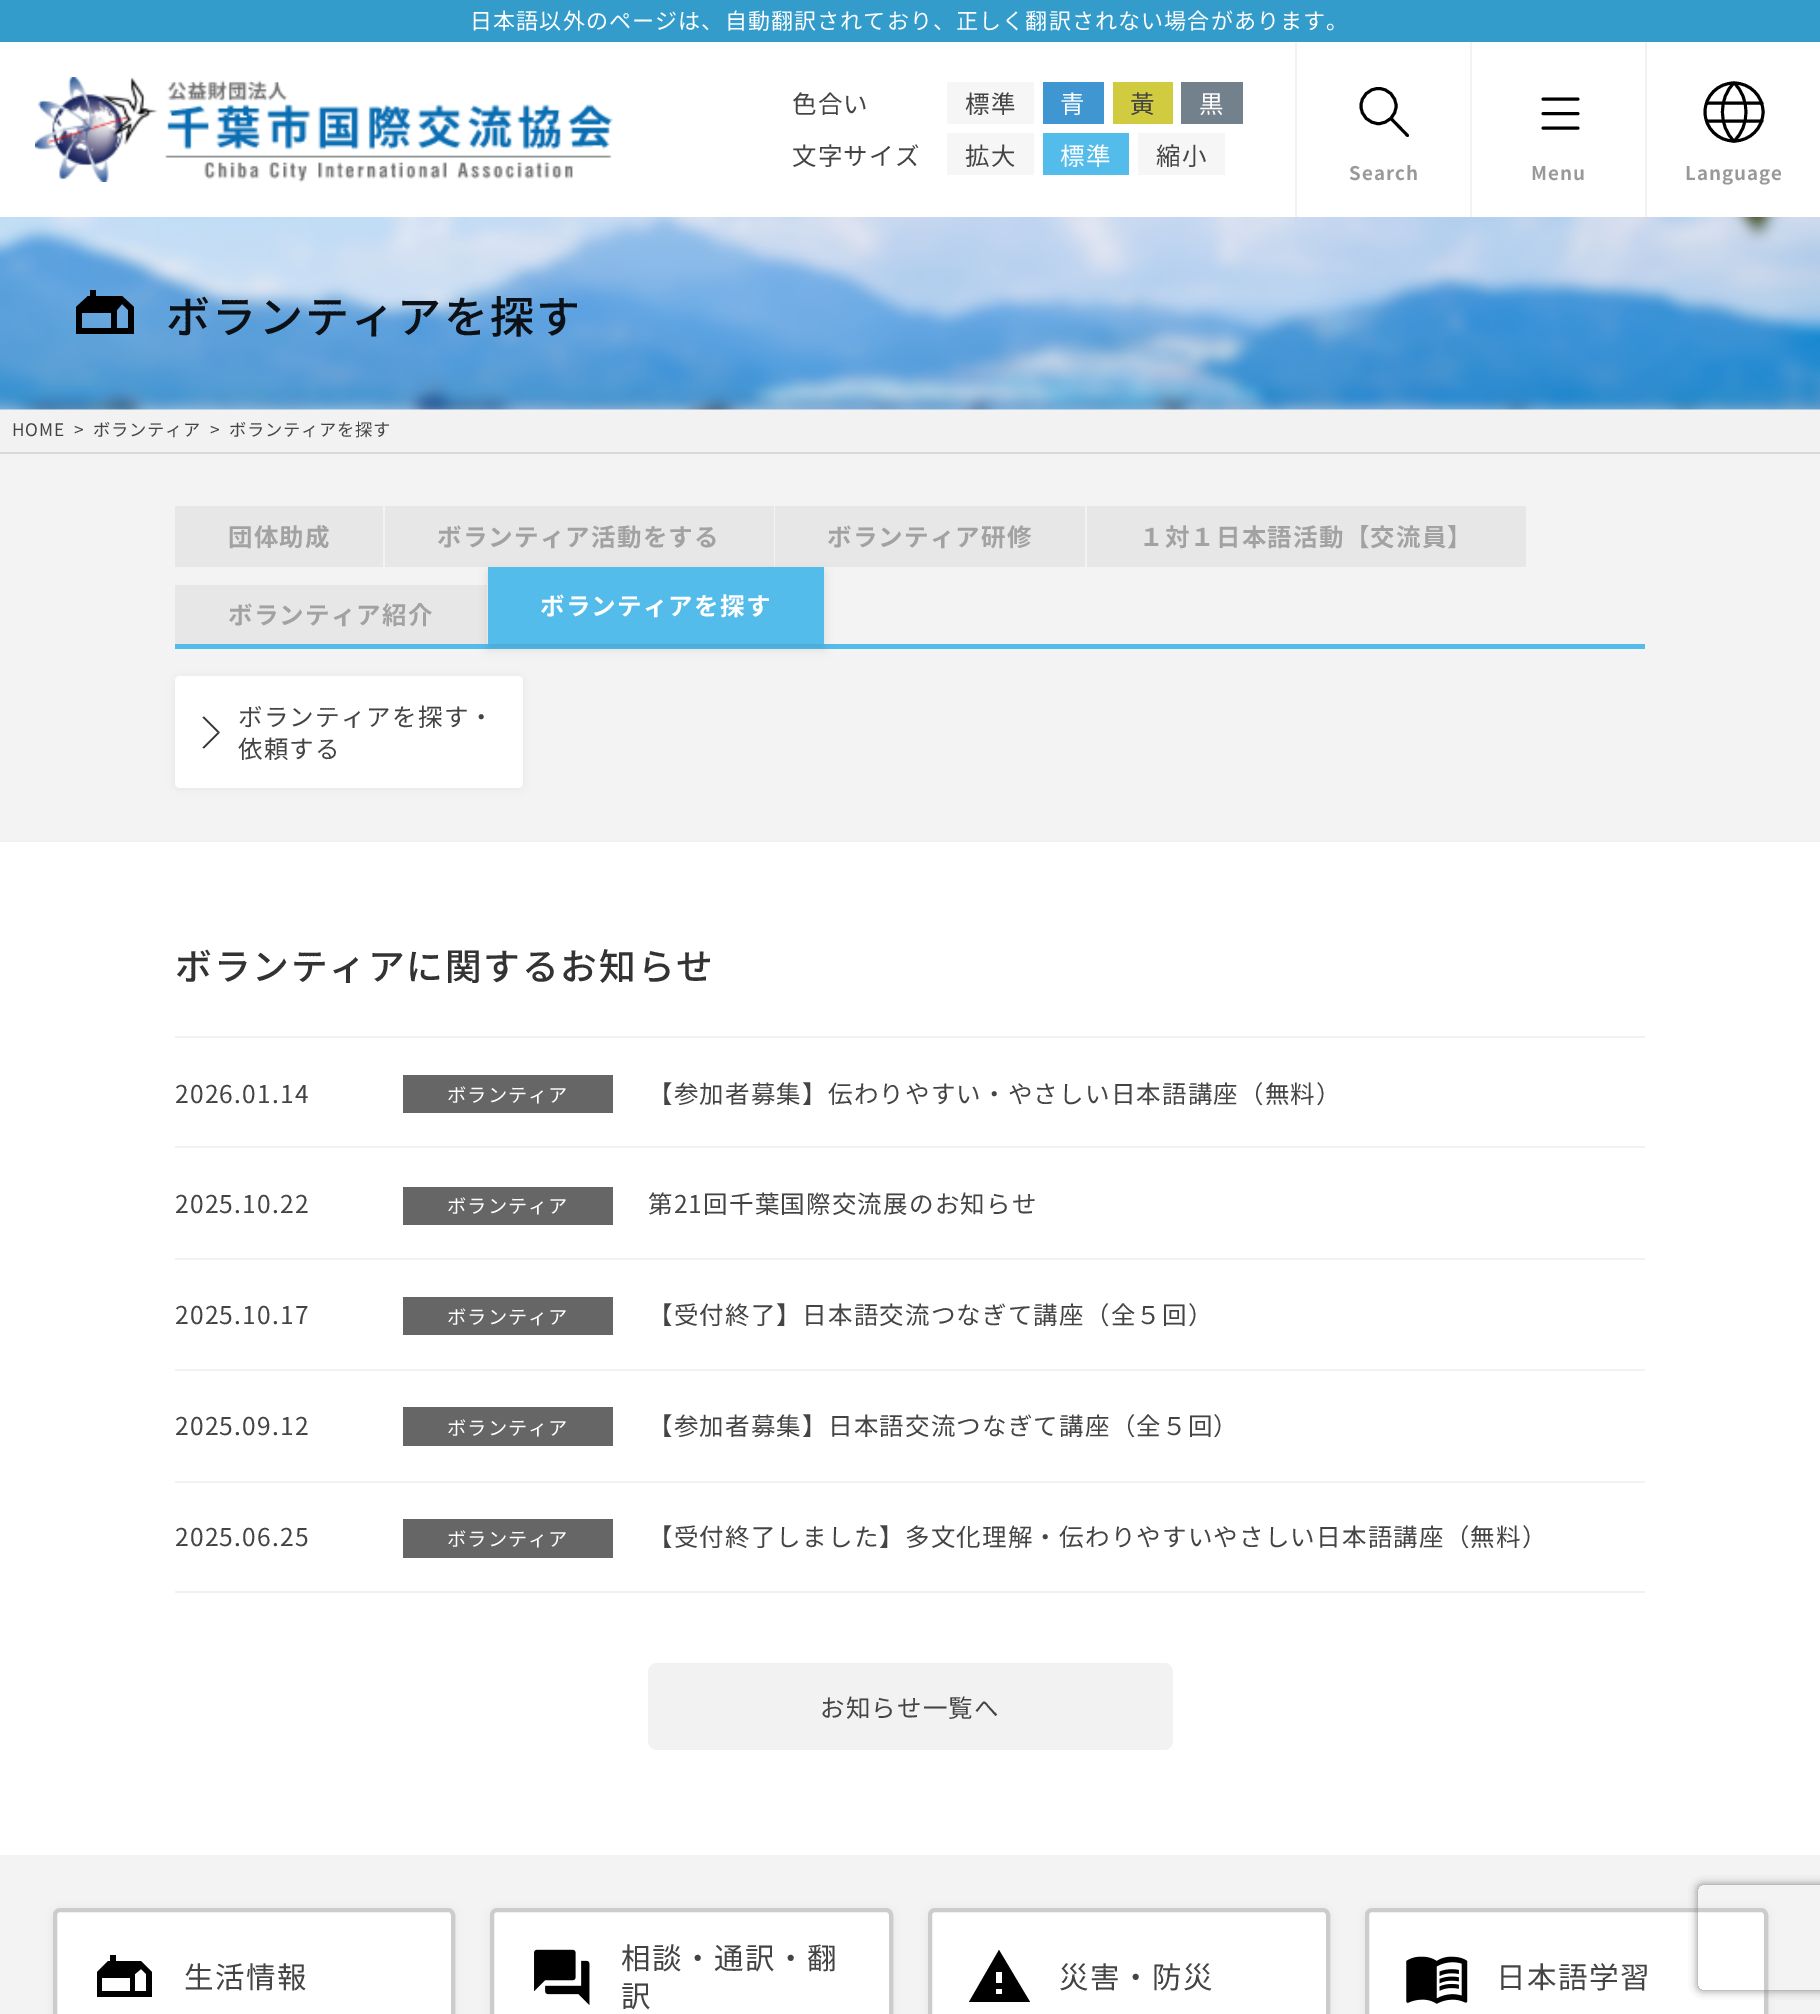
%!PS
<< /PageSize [1820 2014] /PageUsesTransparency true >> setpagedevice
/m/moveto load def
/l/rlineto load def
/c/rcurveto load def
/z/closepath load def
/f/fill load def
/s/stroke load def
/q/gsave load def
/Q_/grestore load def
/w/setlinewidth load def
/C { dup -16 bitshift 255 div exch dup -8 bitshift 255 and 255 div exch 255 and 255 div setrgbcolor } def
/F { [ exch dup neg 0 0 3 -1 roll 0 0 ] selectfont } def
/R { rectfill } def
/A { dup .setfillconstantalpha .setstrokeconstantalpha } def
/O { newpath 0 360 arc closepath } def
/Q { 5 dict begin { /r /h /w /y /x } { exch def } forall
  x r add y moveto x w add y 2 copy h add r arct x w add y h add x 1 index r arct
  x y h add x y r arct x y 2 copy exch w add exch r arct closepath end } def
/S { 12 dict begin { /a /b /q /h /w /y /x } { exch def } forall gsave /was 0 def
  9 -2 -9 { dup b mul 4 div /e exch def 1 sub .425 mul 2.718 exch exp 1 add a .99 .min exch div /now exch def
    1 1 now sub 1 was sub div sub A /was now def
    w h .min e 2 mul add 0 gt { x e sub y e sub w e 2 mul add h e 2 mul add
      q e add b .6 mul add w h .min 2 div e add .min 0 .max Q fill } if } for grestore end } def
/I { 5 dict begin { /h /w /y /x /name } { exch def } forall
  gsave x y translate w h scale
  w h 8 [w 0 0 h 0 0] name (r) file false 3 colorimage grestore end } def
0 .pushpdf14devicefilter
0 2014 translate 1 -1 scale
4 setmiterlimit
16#FFFFFF C
0 0 1820 2014 R
16#339CCB C
0 0 1820 42 R
/NotoSansJP-Regular 22.05 F
16#FFFFFF C
470 29 m 1.1 0 (日本語以外のページは、自動翻訳されており、正しく翻訳されない場合があります。) ashow
(1.rgb) 35 77 578 105 I
/NotoSansJP-Regular 24.5 F
16#444444 C
792 113 m 1.2 0 (色合い) ashow
16#F6F6F6 C
947 82 87 42 R
16#444444 C
965 113 m 1.2 0 (標準) ashow
16#3F96D1 C
1043 82 61 42 R
16#FFFFFF C
1060 113 m 1.2 0 (青) ashow
16#D1CC3F C
1113 82 60 42 R
16#444444 C
1130 113 m 1.2 0 (黃) ashow
16#72818B C
1181 82 62 42 R
16#FFFFFF C
1199 113 m 1.2 0 (黒) ashow
16#444444 C
792 165 m 1.2 0 (文字サイズ) ashow
16#F6F6F6 C
947 133 87 42 R
16#444444 C
965 165 m 1.2 0 (拡大) ashow
16#53BCEB C
1043 133 86 42 R
16#FFFFFF C
1060 165 m 1.2 0 (標準) ashow
16#F6F6F6 C
1138 133 87 42 R
16#444444 C
1156 165 m 1.2 0 (縮小) ashow
16#000000 C
2.9 w
1 setlinecap
1 setlinejoin
1391.5 119 m 16 16.5 l s
0 setlinecap
0 setlinejoin
1378.5 106 17.5 O s
16#F2F2F2 C
1295 42 2 175 R
/NotoSansJP-Bold 18.75 F
16#999999 C
1349 180 m 1 0 (Search) ashow
16#000000 C
1 setlinecap
1 setlinejoin
1543 99 m 35 0 l 1543 113.5 m 35 0 l 1543 128 m 35 0 l s
16#F2F2F2 C
1470 42 2 175 R
16#999999 C
1531 180 m 1 0 (Menu) ashow
16#000000 C
0 setlinecap
0 setlinejoin
1734 112 29 O s
1 setlinecap
1 setlinejoin
1734 141 m 16 -14.5 16 -43.5 0 -58 c -15.5 14.5 -15.5 43.5 0 58 c z 1706.5 103 m 55.5 0 l 1706.5 121 m 55.5 0 l s
16#F2F2F2 C
1645 42 2 175 R
16#999999 C
1685 180 m 1 0 (Language) ashow
16#F6F6F6 C
0 409 1820 1 R
(2.rgb) 0 217 1820 193 I
16#000000 C
122 296 m -26 0 l 0 -6 l -6 0 l 0 6 l -2 0 l -12 11 l 0 27 l 58 0 l 0 -27 l z 82 313 m 29 0 l 0 15 l -29 0 l z 128 328 m -11 0 l 0 -18 l 5 -6 l 6 6 l z f
/NotoSansJP-Medium 44 F
16#0B1116 C
166 333 m 2.25 0 (ボランティアを探す) ashow
16#F2F2F2 C
0 410 1820 42 R
16#DADADA C
0 452 1820 2 R
/NotoSansJP-Regular 17.25 F
16#444444 C
12 436 m .75 0 (HOME) ashow
74 436 m .75 0 (>) ashow
93 436 m .75 0 (ボランティア) ashow
210 436 m .75 0 (>) ashow
229 436 m .75 0 (ボランティアを探す) ashow
16#F3F3F3 C
0 454 1820 386 R
16#53BCEB C
175 644 1470 5 R
16#E7E7E7 C
175 506 208 61 R
/NotoSansJP-Bold 24.5 F
16#A2A2A2 C
228 546 m 1.2 0 (団体助成) ashow
16#E7E7E7 C
385 506 389 61 R
16#A2A2A2 C
437 546 m 1.2 0 (ボランティア活動をする) ashow
16#E7E7E7 C
775 506 310 61 R
16#A2A2A2 C
827 546 m 1.2 0 (ボランティア研修) ashow
16#E7E7E7 C
1087 506 439 61 R
16#A2A2A2 C
1139 546 m 1.2 0 (１対１日本語活動【交流員】) ashow
16#E7E7E7 C
175 585 312 59 R
16#A2A2A2 C
228 624 m 1.2 0 (ボランティア紹介) ashow
16#000000 C
488 572 336 77 0 5 .1 S
16#53BCEB C
488 567 336 77 R
16#FFFFFF C
540 615 m 1.2 0 (ボランティアを探す) ashow
16#000000 C
175 677 348 112 5 5 .05 S
16#FFFFFF C
175 676 348 112 5 Q f
16#333333 C
204 716.5 m 16 16 l -2.5 0 l -15 -15 l z f
220 732.5 m -16 16 l -1.5 -1 l 15 -15 l z f
/NotoSansJP-Regular 24.5 F
16#444444 C
238 726 m 1.2 0 (ボランティアを探す・) ashow
238 758 m 1.2 0 (依頼する) ashow
16#F2F2F2 C
0 840 1820 2 R
/NotoSansJP-Medium 36.75 F
16#333333 C
175 980 m 1.8 0 (ボランティアに関するお知らせ) ashow
16#F2F2F2 C
175 1036 1470 2 R
175 1146 1470 2 R
/NotoSansJP-Regular 24.5 F
16#444444 C
175 1103 m 1.2 0 (2026.01.14) ashow
16#666666 C
403 1075 210 38 R
/NotoSansJP-Regular 19.25 F
16#FFFFFF C
447 1102 m 1 0 (ボランティア) ashow
/NotoSansJP-Regular 24.5 F
16#444444 C
648 1103 m 1.2 0 (【参加者募集】伝わりやすい・やさしい日本語講座（無料）) ashow
16#F2F2F2 C
175 1258 1470 2 R
16#444444 C
175 1213 m 1.2 0 (2025.10.22) ashow
16#666666 C
403 1187 210 38 R
/NotoSansJP-Regular 19.25 F
16#FFFFFF C
447 1213 m 1 0 (ボランティア) ashow
/NotoSansJP-Regular 24.5 F
16#444444 C
648 1213 m 1.2 0 (第21回千葉国際交流展のお知らせ) ashow
16#F2F2F2 C
175 1369 1470 2 R
16#444444 C
175 1324 m 1.2 0 (2025.10.17) ashow
16#666666 C
403 1297 210 38 R
/NotoSansJP-Regular 19.25 F
16#FFFFFF C
447 1324 m 1 0 (ボランティア) ashow
/NotoSansJP-Regular 24.5 F
16#444444 C
648 1324 m 1.2 0 (【受付終了】日本語交流つなぎて講座（全５回）) ashow
16#F2F2F2 C
175 1481 1470 2 R
16#444444 C
175 1435 m 1.2 0 (2025.09.12) ashow
16#666666 C
403 1407 210 39 R
/NotoSansJP-Regular 19.25 F
16#FFFFFF C
447 1435 m 1 0 (ボランティア) ashow
/NotoSansJP-Regular 24.5 F
16#444444 C
648 1435 m 1.2 0 (【参加者募集】日本語交流つなぎて講座（全５回）) ashow
16#F2F2F2 C
175 1591 1470 2 R
16#444444 C
175 1546 m 1.2 0 (2025.06.25) ashow
16#666666 C
403 1519 210 39 R
/NotoSansJP-Regular 19.25 F
16#FFFFFF C
447 1546 m 1 0 (ボランティア) ashow
/NotoSansJP-Regular 24.5 F
16#444444 C
648 1546 m 1.2 0 (【受付終了しました】多文化理解・伝わりやすいやさしい日本語講座（無料）) ashow
16#F2F2F2 C
648 1663 525 87 9 Q f
16#444444 C
820 1717 m 1.2 0 (お知らせ一覧へ) ashow
16#F3F3F3 C
0 1855 1820 159 R
16#000000 C
53 1909 402 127 7 5 .05 S
16#FFFFFF C
53 1908 402 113 7 Q f
16#000000 C
141 1961 m -25 0 l 0 -6 l -6 0 l 0 6 l -2 0 l -11 11 l 0 25 l 55 0 l 0 -25 l z 102 1978 m 28 0 l 0 13 l -28 0 l z 146 1991 m -11 0 l 0 -17 l 6 -5 l 5 5 l z f
0.2 A
4 w
0 setlinecap
0 setlinejoin
55 1910 398 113 5 Q s
/NotoSansJP-Regular 29.5 F
1 A
16#444444 C
184 1988 m 1.5 0 (生活情報) ashow
16#000000 C
490 1909 403 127 7 5 .05 S
16#FFFFFF C
490 1908 403 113 7 Q f
(3.rgb) 534 1949 56 56 I
0.2 A
16#000000 C
492 1910 399 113 5 Q s
1 A
16#444444 C
621 1969 m 1.5 0 (相談・通訳・翻) ashow
621 2007 m 1.5 0 (訳) ashow
16#000000 C
928 1909 402 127 7 5 .05 S
16#FFFFFF C
928 1908 402 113 7 Q f
16#000000 C
969 2002 m 61 0 l -31 -52 l z 1002 1994 m -6 0 l 0 -5 l 6 0 l z 1002 1983 m -6 0 l 0 -11 l 6 0 l z f
0.2 A
930 1910 398 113 5 Q s
1 A
16#444444 C
1059 1988 m 1.5 0 (災害・防災) ashow
16#000000 C
1365 1909 403 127 7 5 .05 S
16#FFFFFF C
1365 1908 403 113 7 Q f
(4.rgb) 1406 1956 62 48 I
0.2 A
16#000000 C
1367 1910 399 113 5 Q s
1 A
16#444444 C
1496 1988 m 1.5 0 (日本語学習) ashow
q
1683 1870 m 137 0 l 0 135 l -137 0 l z 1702 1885 m 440 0 l 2 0 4 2 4 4 c 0 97 l 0 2 -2 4 -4 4 c -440 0 l -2 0 -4 -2 -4 -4 c 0 -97 l 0 -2 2 -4 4 -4 c z eoclip newpath
16#808080 C
1698 1885 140 105 4 4.5 1 S
Q_
.poppdf14devicefilter showpage
